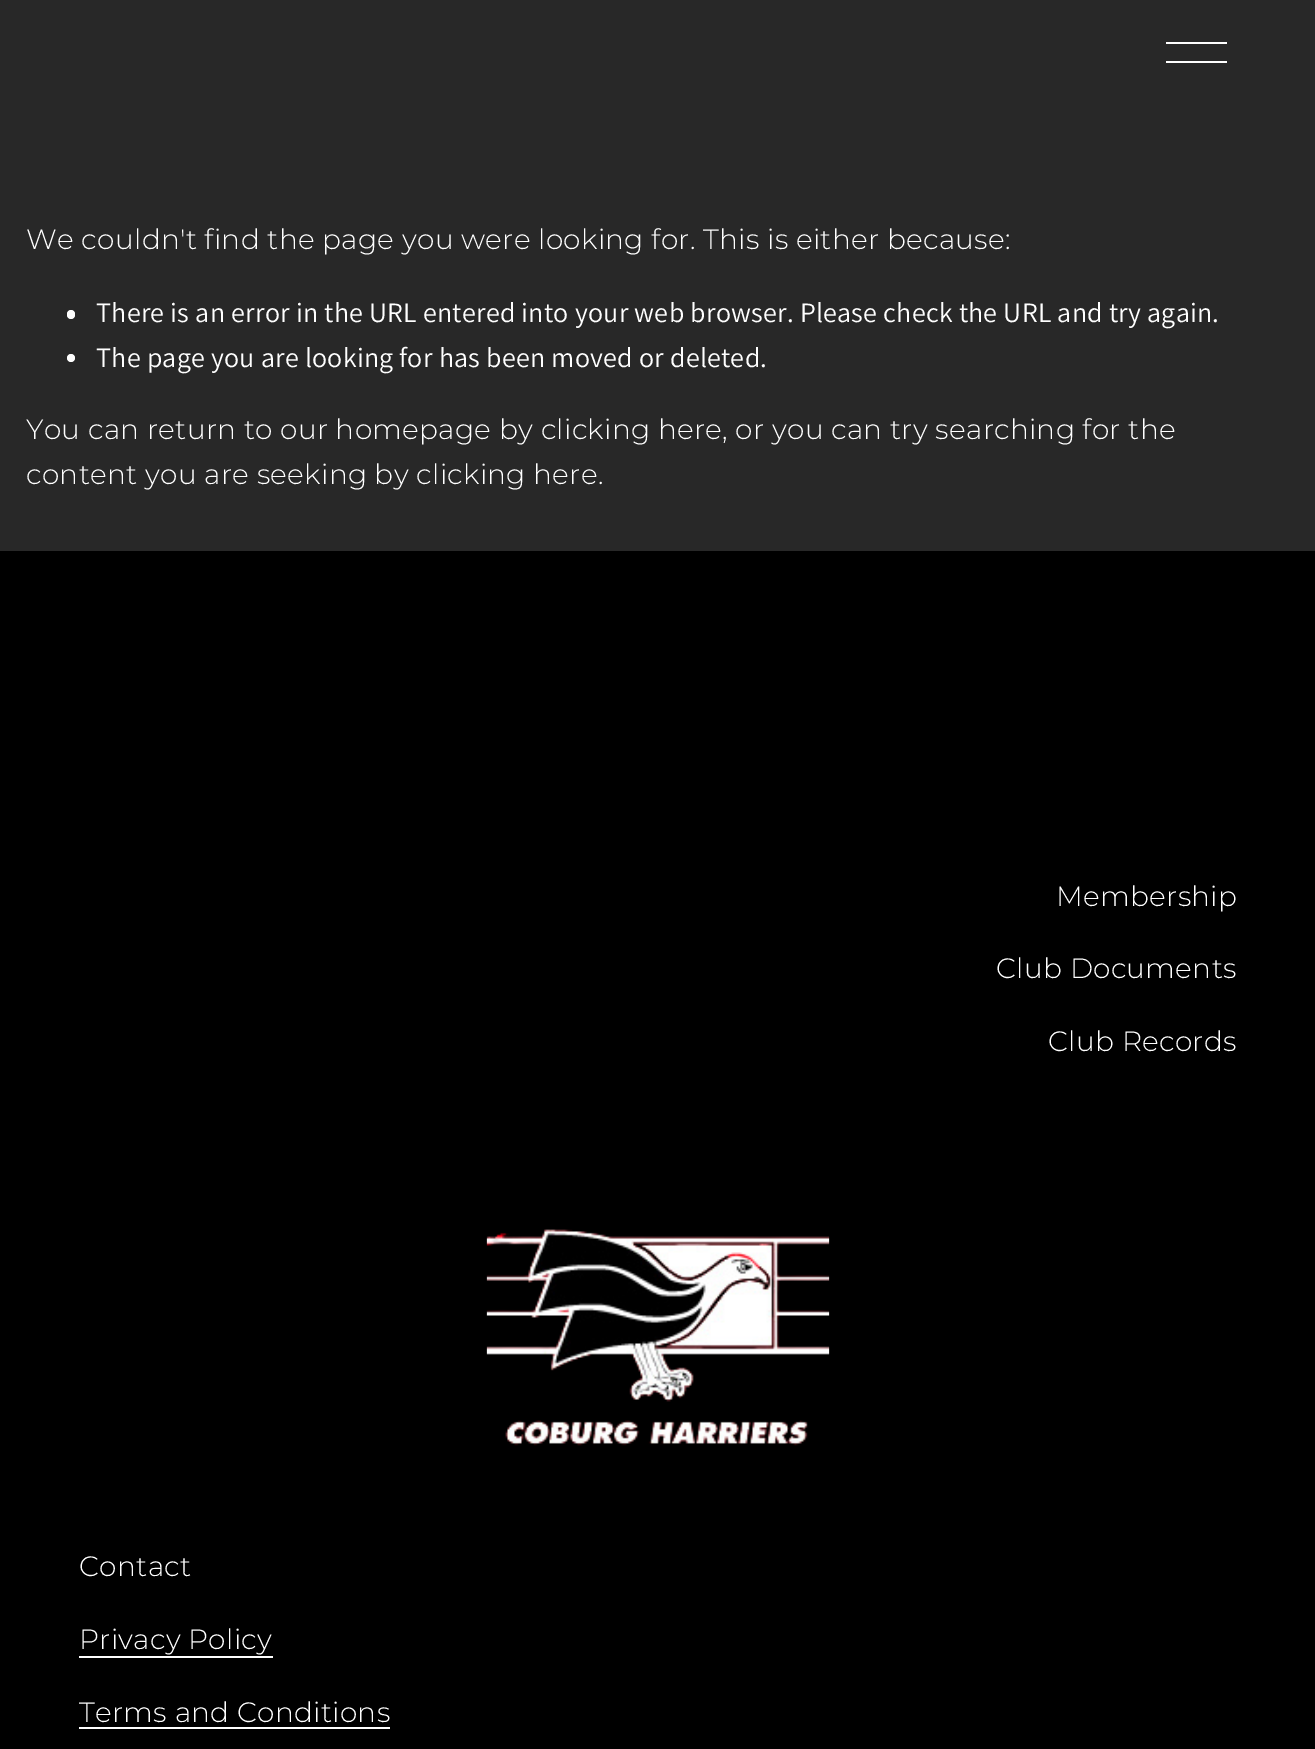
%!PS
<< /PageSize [1315 1749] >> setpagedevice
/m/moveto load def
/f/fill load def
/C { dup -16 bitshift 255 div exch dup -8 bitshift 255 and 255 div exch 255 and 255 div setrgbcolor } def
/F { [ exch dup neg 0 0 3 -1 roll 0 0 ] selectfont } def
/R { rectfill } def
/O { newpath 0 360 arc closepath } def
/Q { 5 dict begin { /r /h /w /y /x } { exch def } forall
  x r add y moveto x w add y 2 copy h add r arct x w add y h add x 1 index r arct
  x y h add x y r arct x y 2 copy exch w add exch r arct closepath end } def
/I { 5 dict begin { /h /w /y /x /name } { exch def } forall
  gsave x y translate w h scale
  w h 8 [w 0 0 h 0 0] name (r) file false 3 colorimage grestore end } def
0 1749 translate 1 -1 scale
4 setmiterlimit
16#282828 C
0 0 1315 1749 R
16#FFFFFF C
1166 42 61 2 R
1166 61 61 2 R
/Montserrat-Light 28 F
26 249 m .28 0 (We couldn't find the page you were looking for. This is either because:) ashow
67 310 8 9 4 Q f
/Assistant-Regular 28 F
96 322 m .28 0 (There is an error in the URL entered into your web browser. Please check the URL and try again.) ashow
71 358 4 O f
96 367 m .28 0 (The page you are looking for has been moved or deleted.) ashow
/Montserrat-Light 28 F
26 439 m .28 0 (You can return to our homepage by clicking here, or you can try searching for the) ashow
26 484 m .28 0 (content you are seeking by clicking here.) ashow
16#000000 C
0 551 1315 1198 R
16#FFFFFF C
1056 906 m .28 0 (Membership) ashow
996 978 m .28 0 (Club Documents) ashow
1048 1051 m .28 0 (Club Records) ashow
(1.rgb) 486 1229 344 217 I
79 1576 m .28 0 (Contact) ashow
79 1649 m .28 0 (Privacy Policy) ashow
79 1656 194 2 R
79 1722 m .28 0 (Terms and Conditions) ashow
79 1727 311 2 R
showpage
